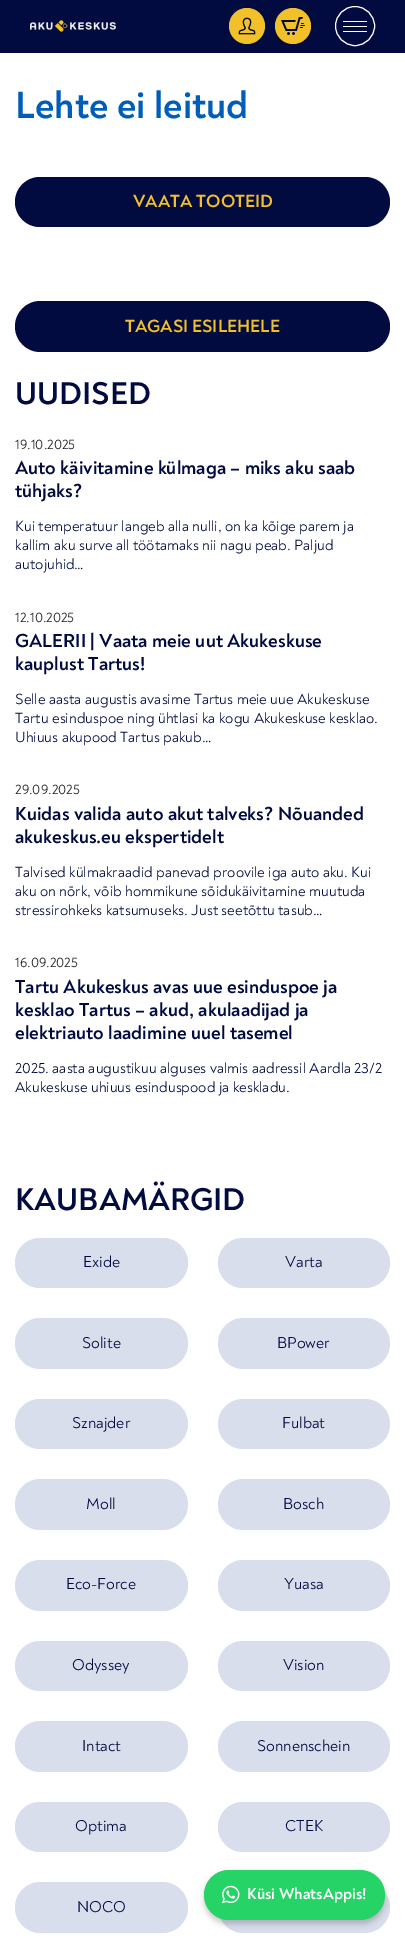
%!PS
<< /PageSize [405 1940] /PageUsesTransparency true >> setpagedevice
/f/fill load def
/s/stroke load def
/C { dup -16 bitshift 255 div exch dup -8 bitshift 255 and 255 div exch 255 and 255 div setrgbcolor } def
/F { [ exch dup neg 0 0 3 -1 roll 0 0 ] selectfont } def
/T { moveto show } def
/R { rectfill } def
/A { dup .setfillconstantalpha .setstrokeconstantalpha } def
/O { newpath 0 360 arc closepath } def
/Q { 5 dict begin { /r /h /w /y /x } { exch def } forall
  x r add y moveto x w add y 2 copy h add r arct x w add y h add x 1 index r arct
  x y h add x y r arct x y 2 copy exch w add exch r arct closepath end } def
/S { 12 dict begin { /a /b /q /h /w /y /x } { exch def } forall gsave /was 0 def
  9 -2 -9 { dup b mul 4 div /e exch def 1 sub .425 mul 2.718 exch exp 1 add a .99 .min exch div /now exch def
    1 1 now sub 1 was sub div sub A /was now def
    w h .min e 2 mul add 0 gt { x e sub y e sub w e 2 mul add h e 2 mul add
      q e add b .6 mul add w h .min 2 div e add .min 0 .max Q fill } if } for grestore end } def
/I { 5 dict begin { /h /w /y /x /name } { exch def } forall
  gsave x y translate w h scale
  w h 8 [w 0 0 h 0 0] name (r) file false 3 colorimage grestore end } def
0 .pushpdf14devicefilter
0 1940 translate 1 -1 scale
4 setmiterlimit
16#FFFFFF C
0 0 405 1940 R
16#020B40 C
0 0 405 53 R
(1.rgb) 30 20 86 12 I
16#F2C029 C
247 26 18 O f
(2.rgb) 238 17 18 18 I
293 26 18 O f
(3.rgb) 281 17 24 18 I
16#FFFFFF C
355 26 19.5 O s
343 21 24 1 R
343 26 24 1 R
343 31 24 1 R
/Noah-Bold 38.5 F
16#005EB8 C
(Lehte ei leitud) 15 118 T
16#020B40 C
15 177 375 50 25 Q f
/Noah-Bold 18 F
16#F2C029 C
(VAATA TOOTEID) 133 207 T
16#020B40 C
15 301 375 51 25.5 Q f
16#F2C029 C
(TAGASI ESILEHELE) 125 332 T
/Noah-Bold 32 F
16#020B40 C
(UUDISED) 15 404 T
/Noah-Regular 14 F
16#231F20 C
(19.10.2025) 15 449 T
/Noah-Bold 19.25 F
16#020B40 C
(Auto käivitamine külmaga – miks aku saab) 15 474 T
(tühjaks?) 15 497 T
/Noah-Regular 15 F
(Kui temperatuur langeb alla nulli, on ka kõige parem ja) 15 531 T
(kallim aku surve all töötamaks nii nagu peab. Paljud) 15 550 T
(autojuhid…) 15 569 T
/Noah-Regular 14 F
16#231F20 C
(12.10.2025) 15 622 T
/Noah-Bold 19.25 F
16#020B40 C
(GALERII | Vaata meie uut Akukeskuse) 15 647 T
(kauplust Tartus!) 15 670 T
/Noah-Regular 15 F
(Selle aasta augustis avasime Tartus meie uue Akukeskuse) 15 704 T
(Tartu esinduspoe ning ühtlasi ka kogu Akukeskuse kesklao.) 15 723 T
(Uhiuus akupood Tartus pakub…) 15 742 T
/Noah-Regular 14 F
16#231F20 C
(29.09.2025) 15 794 T
/Noah-Bold 19.25 F
16#020B40 C
(Kuidas valida auto akut talveks? Nõuanded) 15 820 T
(akukeskus.eu ekspertidelt) 15 843 T
/Noah-Regular 15 F
(Talvised külmakraadid panevad proovile iga auto aku. Kui) 15 877 T
(aku on nõrk, võib hommikune sõidukäivitamine muutuda) 15 896 T
(stressirohkeks katsumuseks. Just seetõttu tasub…) 15 915 T
/Noah-Regular 14 F
16#231F20 C
(16.09.2025) 15 967 T
/Noah-Bold 19.25 F
16#020B40 C
(Tartu Akukeskus avas uue esinduspoe ja) 15 993 T
(kesklao Tartus – akud, akulaadijad ja) 15 1016 T
(elektriauto laadimine uuel tasemel) 15 1039 T
/Noah-Regular 15 F
(2025. aasta augustikuu alguses valmis aadressil Aardla 23/2) 15 1073 T
(Akukeskuse uhiuus esinduspood ja keskladu.) 15 1092 T
/Noah-Bold 32 F
(KAUBAMÄRGID) 15 1210 T
16#D9DEEC C
15 1238 173 50 25 Q f
/Noah-Regular 16 F
16#020B40 C
(Exide) 83 1267 T
16#D9DEEC C
218 1238 172 50 25 Q f
16#020B40 C
(Varta) 285 1267 T
16#D9DEEC C
15 1318 173 51 25.5 Q f
16#020B40 C
(Solite) 82 1348 T
16#D9DEEC C
218 1318 172 51 25.5 Q f
16#020B40 C
(BPower) 277 1348 T
16#D9DEEC C
15 1399 173 50 25 Q f
16#020B40 C
(Sznajder) 72 1428 T
16#D9DEEC C
218 1399 172 50 25 Q f
16#020B40 C
(Fulbat) 282 1428 T
16#D9DEEC C
15 1479 173 51 25.5 Q f
16#020B40 C
(Moll) 86 1509 T
16#D9DEEC C
218 1479 172 51 25.5 Q f
16#020B40 C
(Bosch) 283 1509 T
16#D9DEEC C
15 1560 173 51 25.5 Q f
16#020B40 C
(Eco-Force) 66 1589 T
16#D9DEEC C
218 1560 172 51 25.5 Q f
16#020B40 C
(Yuasa) 284 1589 T
16#D9DEEC C
15 1641 173 50 25 Q f
16#020B40 C
(Odyssey) 72 1670 T
16#D9DEEC C
218 1641 172 50 25 Q f
16#020B40 C
(Vision) 283 1670 T
16#D9DEEC C
15 1721 173 51 25.5 Q f
16#020B40 C
(Intact) 82 1751 T
16#D9DEEC C
218 1721 172 51 25.5 Q f
16#020B40 C
(Sonnenschein) 257 1751 T
16#D9DEEC C
15 1802 173 50 25 Q f
16#020B40 C
(Optima) 75 1831 T
16#D9DEEC C
218 1802 172 50 25 Q f
16#020B40 C
(CTEK) 285 1831 T
16#D9DEEC C
15 1882 173 51 25.5 Q f
16#020B40 C
(NOCO) 77 1912 T
16#D9DEEC C
218 1882 172 51 25.5 Q f
16#000000 C
204 1874 181 50 25 3 .2 S
16#25D366 C
204 1870 181 50 25 Q f
(4.rgb) 222 1885 18 19 I
/Noah-Bold 16 F
16#FFFFFF C
(Küsi WhatsAppis!) 247 1899 T
.poppdf14devicefilter showpage
